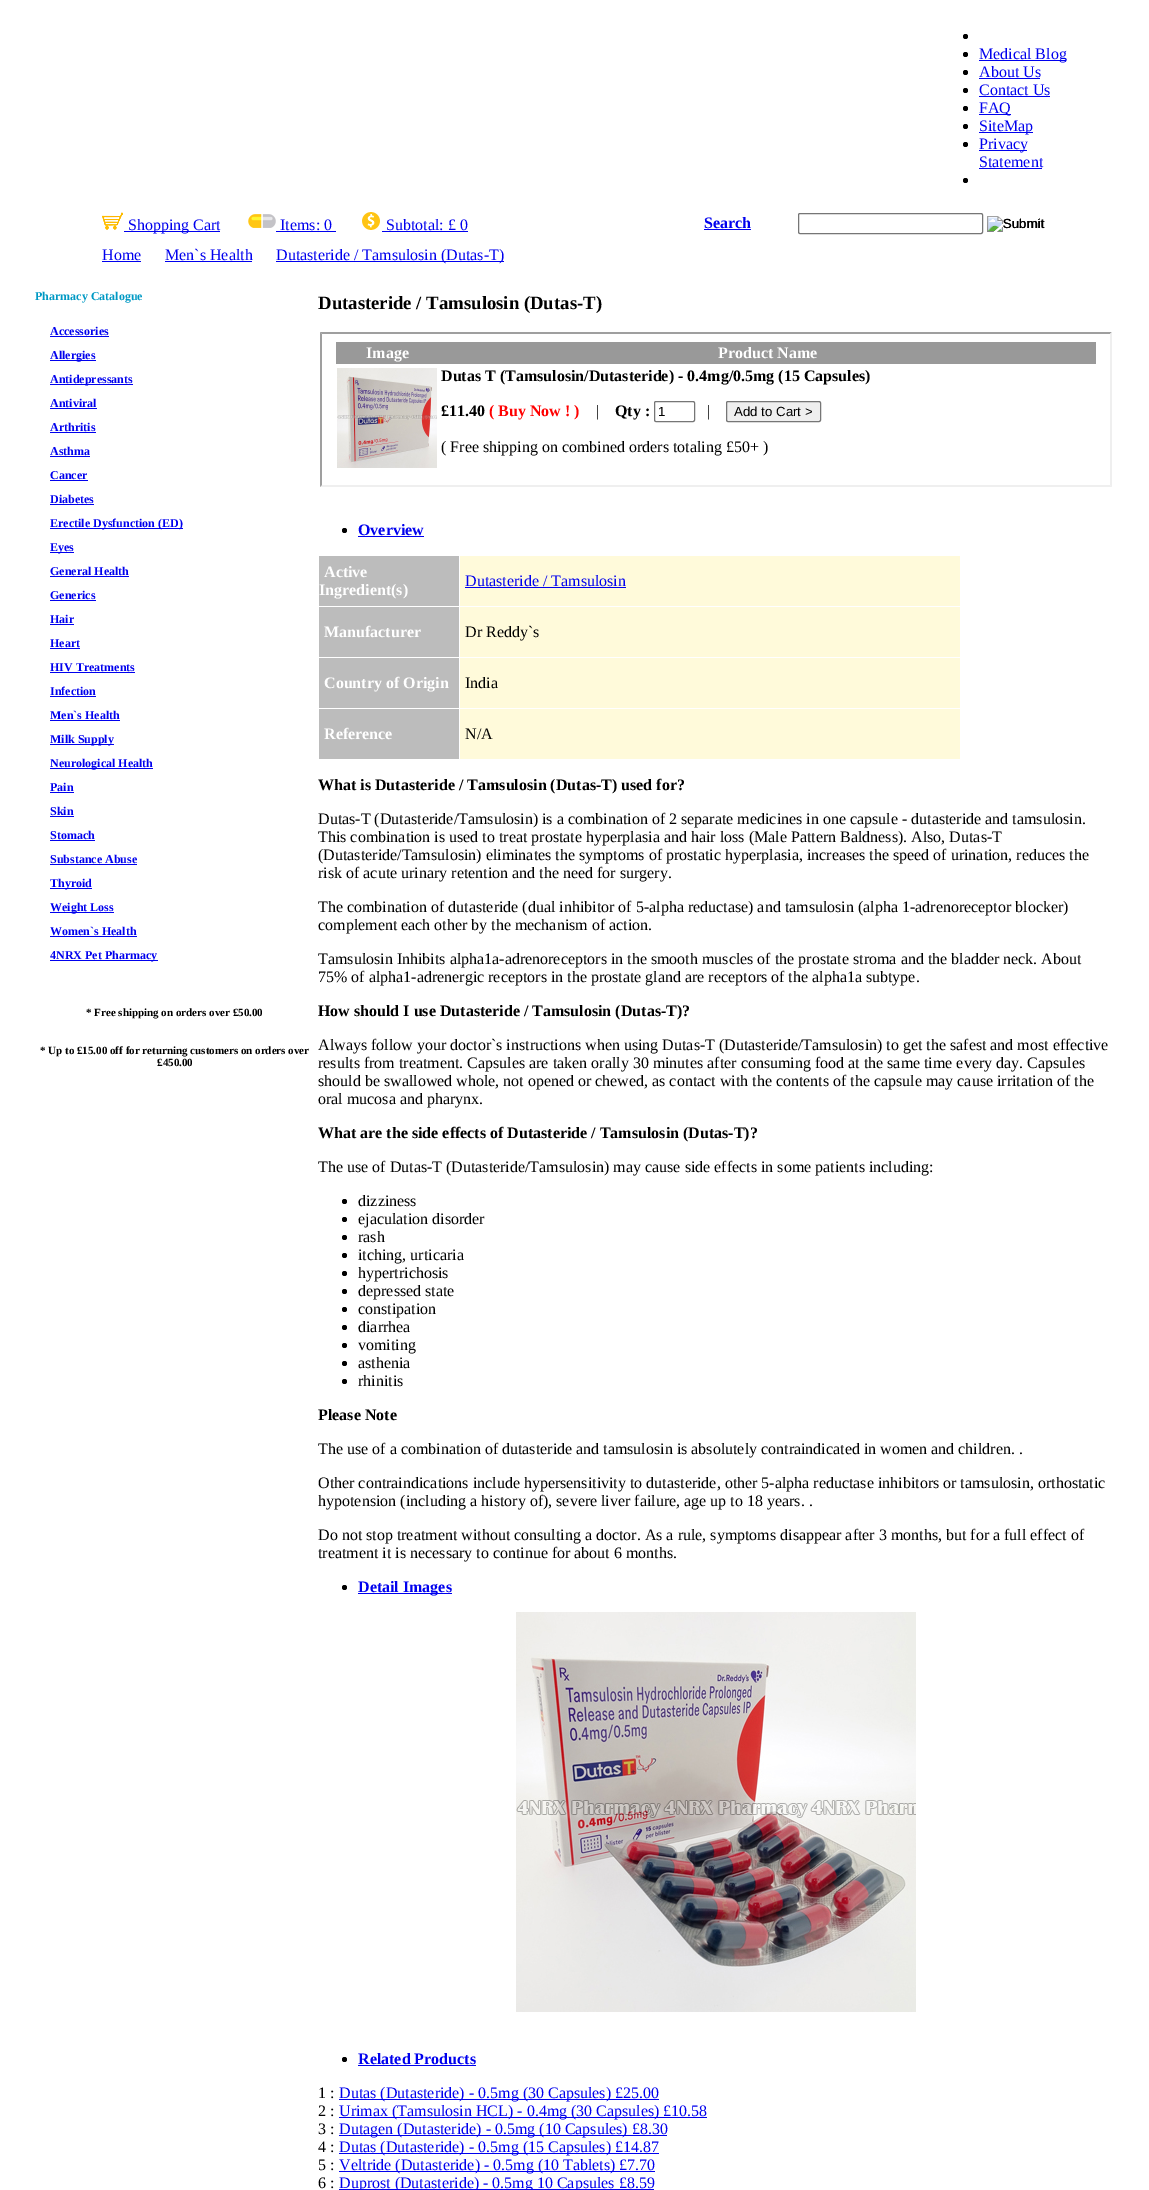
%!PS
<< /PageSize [1149 2190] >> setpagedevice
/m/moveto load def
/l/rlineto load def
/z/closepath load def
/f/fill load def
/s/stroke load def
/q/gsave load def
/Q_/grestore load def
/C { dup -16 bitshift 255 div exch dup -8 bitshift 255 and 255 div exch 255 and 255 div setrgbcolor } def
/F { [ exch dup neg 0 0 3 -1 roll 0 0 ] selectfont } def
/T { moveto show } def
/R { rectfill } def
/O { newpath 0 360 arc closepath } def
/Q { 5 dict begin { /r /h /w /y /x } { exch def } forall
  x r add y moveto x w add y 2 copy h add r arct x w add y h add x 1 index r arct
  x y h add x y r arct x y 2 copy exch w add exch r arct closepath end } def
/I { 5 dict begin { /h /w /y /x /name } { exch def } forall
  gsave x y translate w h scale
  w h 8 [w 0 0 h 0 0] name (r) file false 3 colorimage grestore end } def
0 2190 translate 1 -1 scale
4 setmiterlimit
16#FFFFFF C
0 0 1149 2190 R
16#000000 C
965.5 36.5 2.5 O f
965.5 54.5 2.5 O f
16#0000EE C
979 60 87 1 R
/LiberationSerif-Regular 16 F
(Medical Blog) 979 59 T
16#000000 C
965.5 72.5 2.5 O f
16#0000EE C
(About Us) 979 77 T
979 78 61 1 R
16#000000 C
965.5 90.5 2.5 O f
16#0000EE C
(Contact Us) 979 95 T
979 96 71 1 R
16#000000 C
965.5 108.5 2.5 O f
16#0000EE C
979 114 32 1 R
(FAQ) 979 113 T
16#000000 C
965.5 126.5 2.5 O f
16#0000EE C
979 132 54 1 R
(SiteMap) 979 131 T
16#000000 C
965.5 144.5 2.5 O f
16#0000EE C
979 150 48 1 R
(Privacy) 979 149 T
(Statement) 979 167 T
979 168 63 1 R
16#000000 C
965.5 180.5 2.5 O f
(1.rgb) 102 212 21 18 I
16#0000EE C
124 231 96 1 R
(Shopping Cart) 128 230 T
(2.rgb) 248 214 28 14 I
(Items: 0) 280 230 T
276 231 60 1 R
(3.rgb) 362 212 18 18 I
(Subtotal: £ 0) 386 230 T
382 231 86 1 R
/LiberationSerif-Bold 16 F
(Search) 704 228 T
704 229 47 1 R
16#767676 C
798.5 213.5 184 20 1.5 Q s
(4.rgb) 987 216 57 16 I
/LiberationSans-Regular 13.25 F
16#000000 C
(Submit) 1003 228 T
/LiberationSerif-Regular 16 F
16#0000EE C
(Home) 102 260 T
102 261 39 1 R
(Men`s Health) 165 260 T
165 261 87 1 R
276 261 228 1 R
(Dutasteride / Tamsulosin \(Dutas-T\)) 276 260 T
/LiberationSerif-Bold 12 F
16#0099C4 C
(Pharmacy Catalogue) 35 300 T
16#0000EE C
(Accessories) 50 335 T
50 336 59 1 R
50 360 46 1 R
(Allergies) 50 359 T
50 384 83 1 R
(Antidepressants) 50 383 T
(Antiviral) 50 407 T
50 408 47 1 R
(Arthritis) 50 431 T
50 432 46 1 R
(Asthma) 50 455 T
50 456 40 1 R
(Cancer) 50 479 T
50 480 38 1 R
(Diabetes) 50 503 T
50 504 44 1 R
50 528 133 1 R
(Erectile Dysfunction \(ED\)) 50 527 T
50 552 24 1 R
(Eyes) 50 551 T
(General Health) 50 575 T
50 576 79 1 R
(Generics) 50 599 T
50 600 46 1 R
(Hair) 50 623 T
50 624 24 1 R
(Heart) 50 647 T
50 648 30 1 R
(HIV Treatments) 50 671 T
50 672 85 1 R
(Infection) 50 695 T
50 696 46 1 R
(Men`s Health) 50 719 T
50 720 70 1 R
50 744 64 1 R
(Milk Supply) 50 743 T
50 768 103 1 R
(Neurological Health) 50 767 T
(Pain) 50 791 T
50 792 24 1 R
(Skin) 50 815 T
50 816 24 1 R
(Stomach) 50 839 T
50 840 45 1 R
(Substance Abuse) 50 863 T
50 864 87 1 R
50 888 42 1 R
(Thyroid) 50 887 T
50 912 64 1 R
(Weight Loss) 50 911 T
(Women`s Health) 50 935 T
50 936 87 1 R
50 960 108 1 R
(4NRX Pet Pharmacy) 50 959 T
/LiberationSerif-Bold 11 F
16#000000 C
(* Free shipping on orders over £50.00) 86 1016 T
(* Up to £15.00 off for returning customers on orders over) 40 1054 T
(£450.00) 157 1066 T
/LiberationSerif-Bold 18.75 F
(Dutasteride / Tamsulosin \(Dutas-T\)) 318 309 T
16#9F9F9F C
320 332 m 792 0 l -2 2 l -788 0 l z f
16#EFEFEF C
1112 332 m 0 155 l -2 -2 l 0 -151 l z f
1112 487 m -792 0 l 2 -2 l 788 0 l z f
16#9F9F9F C
320 487 m 0 -155 l 2 2 l 0 151 l z f
16#999999 C
336 342 760 22 R
/LiberationSerif-Bold 16 F
16#FFFFFF C
(Image) 366 358 T
(Product Name) 718 358 T
(5.rgb) 337 368 100 100 I
16#000000 C
(Dutas T \(Tamsulosin/Dutasteride\) - 0.4mg/0.5mg \(15 Capsules\)) 441 381 T
(£11.40) 441 416 T
16#FF0000 C
(\( Buy Now ! \)) 489 416 T
/LiberationSerif-Regular 16 F
16#000000 C
(|) 596 416 T
/LiberationSerif-Bold 16 F
(Qty :) 615 416 T
16#767676 C
654.5 401.5 40 20 1.5 Q s
/LiberationSans-Regular 13.25 F
16#000000 C
(1) 658 416 T
/LiberationSerif-Regular 16 F
(|) 707 416 T
16#EFEFEF C
726.5 401.5 94 20 1.5 Q q f Q_
16#767676 C
s
/LiberationSans-Regular 13.25 F
16#000000 C
(Add to Cart >) 734 416 T
/LiberationSerif-Regular 16 F
(\( Free shipping on combined orders totaling £50+ \)) 441 452 T
344.5 530.5 2.5 O f
/LiberationSerif-Bold 16 F
16#0000EE C
(Overview) 358 535 T
358 536 66 1 R
16#BCBCBC C
319 556 140 50 R
16#FFFFFF C
(Active) 324 577 T
(Ingredient\(s\)) 319 595 T
16#FFFADA C
460 556 500 50 R
/LiberationSerif-Regular 16 F
16#0000EE C
(Dutasteride / Tamsulosin) 465 586 T
465 587 161 1 R
16#BCBCBC C
319 607 140 50 R
/LiberationSerif-Bold 16 F
16#FFFFFF C
(Manufacturer) 324 637 T
16#FFFADA C
460 607 500 50 R
/LiberationSerif-Regular 16 F
16#000000 C
(Dr Reddy`s) 465 637 T
16#BCBCBC C
319 658 140 50 R
/LiberationSerif-Bold 16 F
16#FFFFFF C
(Country of Origin) 324 688 T
16#FFFADA C
460 658 500 50 R
/LiberationSerif-Regular 16 F
16#000000 C
(India) 465 688 T
16#BCBCBC C
319 709 140 50 R
/LiberationSerif-Bold 16 F
16#FFFFFF C
(Reference) 324 739 T
16#FFFADA C
460 709 500 50 R
/LiberationSerif-Regular 16 F
16#000000 C
(N/A) 465 739 T
/LiberationSerif-Bold 16 F
(What is Dutasteride / Tamsulosin \(Dutas-T\) used for?) 318 790 T
/LiberationSerif-Regular 16 F
(Dutas-T \(Dutasteride/Tamsulosin\) is a combination of 2 separate medicines in one capsule - dutasteride and tamsulosin.) 318 824 T
(This combination is used to treat prostate hyperplasia and hair loss \(Male Pattern Baldness\). Also, Dutas-T) 318 842 T
(\(Dutasteride/Tamsulosin\) eliminates the symptoms of prostatic hyperplasia, increases the speed of urination, reduces the) 318 860 T
(risk of acute urinary retention and the need for surgery.) 318 878 T
(The combination of dutasteride \(dual inhibitor of 5-alpha reductase\) and tamsulosin \(alpha 1-adrenoreceptor blocker\)) 318 912 T
(complement each other by the mechanism of action.) 318 930 T
(Tamsulosin Inhibits alpha1a-adrenoreceptors in the smooth muscles of the prostate stroma and the bladder neck. About) 318 964 T
(75% of alpha1-adrenergic receptors in the prostate gland are receptors of the alpha1a subtype.) 318 982 T
/LiberationSerif-Bold 16 F
(How should I use Dutasteride / Tamsulosin \(Dutas-T\)?) 318 1016 T
/LiberationSerif-Regular 16 F
(Always follow your doctor`s instructions when using Dutas-T \(Dutasteride/Tamsulosin\) to get the safest and most effective) 318 1050 T
(results from treatment. Capsules are taken orally 30 minutes after consuming food at the same time every day. Capsules) 318 1068 T
(should be swallowed whole, not opened or chewed, as contact with the contents of the capsule may cause irritation of the) 318 1086 T
(oral mucosa and pharynx.) 318 1104 T
/LiberationSerif-Bold 16 F
(What are the side effects of Dutasteride / Tamsulosin \(Dutas-T\)?) 318 1138 T
/LiberationSerif-Regular 16 F
(The use of Dutas-T \(Dutasteride/Tamsulosin\) may cause side effects in some patients including:) 318 1172 T
344.5 1201.5 2.5 O f
(dizziness) 358 1206 T
344.5 1219.5 2.5 O f
(ejaculation disorder) 358 1224 T
344.5 1237.5 2.5 O f
(rash) 358 1242 T
344.5 1255.5 2.5 O f
(itching, urticaria) 358 1260 T
344.5 1273.5 2.5 O f
(hypertrichosis) 358 1278 T
344.5 1291.5 2.5 O f
(depressed state) 358 1296 T
344.5 1309.5 2.5 O f
(constipation) 358 1314 T
344.5 1327.5 2.5 O f
(diarrhea) 358 1332 T
344.5 1345.5 2.5 O f
(vomiting) 358 1350 T
344.5 1363.5 2.5 O f
(asthenia) 358 1368 T
344.5 1381.5 2.5 O f
(rhinitis) 358 1386 T
/LiberationSerif-Bold 16 F
(Please Note) 318 1420 T
/LiberationSerif-Regular 16 F
(The use of a combination of dutasteride and tamsulosin is absolutely contraindicated in women and children. .) 318 1454 T
(Other contraindications include hypersensitivity to dutasteride, other 5-alpha reductase inhibitors or tamsulosin, orthostatic) 318 1488 T
(hypotension \(including a history of\), severe liver failure, age up to 18 years. .) 318 1506 T
(Do not stop treatment without consulting a doctor. As a rule, symptoms disappear after 3 months, but for a full effect of) 318 1540 T
(treatment it is necessary to continue for about 6 months.) 318 1558 T
344.5 1587.5 2.5 O f
16#0000EE C
358 1593 94 1 R
/LiberationSerif-Bold 16 F
(Detail Images) 358 1592 T
(6.rgb) 516 1612 400 400 I
16#000000 C
344.5 2059.5 2.5 O f
16#0000EE C
(Related Products) 358 2064 T
358 2065 118 1 R
/LiberationSerif-Regular 16 F
16#000000 C
(1 :) 318 2098 T
16#0000EE C
339 2099 320 1 R
(Dutas \(Dutasteride\) - 0.5mg \(30 Capsules\) £25.00) 339 2098 T
16#000000 C
(2 :) 318 2116 T
16#0000EE C
339 2117 368 1 R
(Urimax \(Tamsulosin HCL\) - 0.4mg \(30 Capsules\) £10.58) 339 2116 T
16#000000 C
(3 :) 318 2134 T
16#0000EE C
339 2135 328 1 R
(Dutagen \(Dutasteride\) - 0.5mg \(10 Capsules\) £8.30) 339 2134 T
16#000000 C
(4 :) 318 2152 T
16#0000EE C
339 2153 320 1 R
(Dutas \(Dutasteride\) - 0.5mg \(15 Capsules\) £14.87) 339 2152 T
16#000000 C
(5 :) 318 2170 T
16#0000EE C
339 2171 316 1 R
(Veltride \(Dutasteride\) - 0.5mg \(10 Tablets\) £7.70) 339 2170 T
16#000000 C
(6 :) 318 2188 T
16#0000EE C
339 2189 315 1 R
(Duprost \(Dutasteride\) - 0.5mg 10 Capsules £8.59) 339 2188 T
showpage
